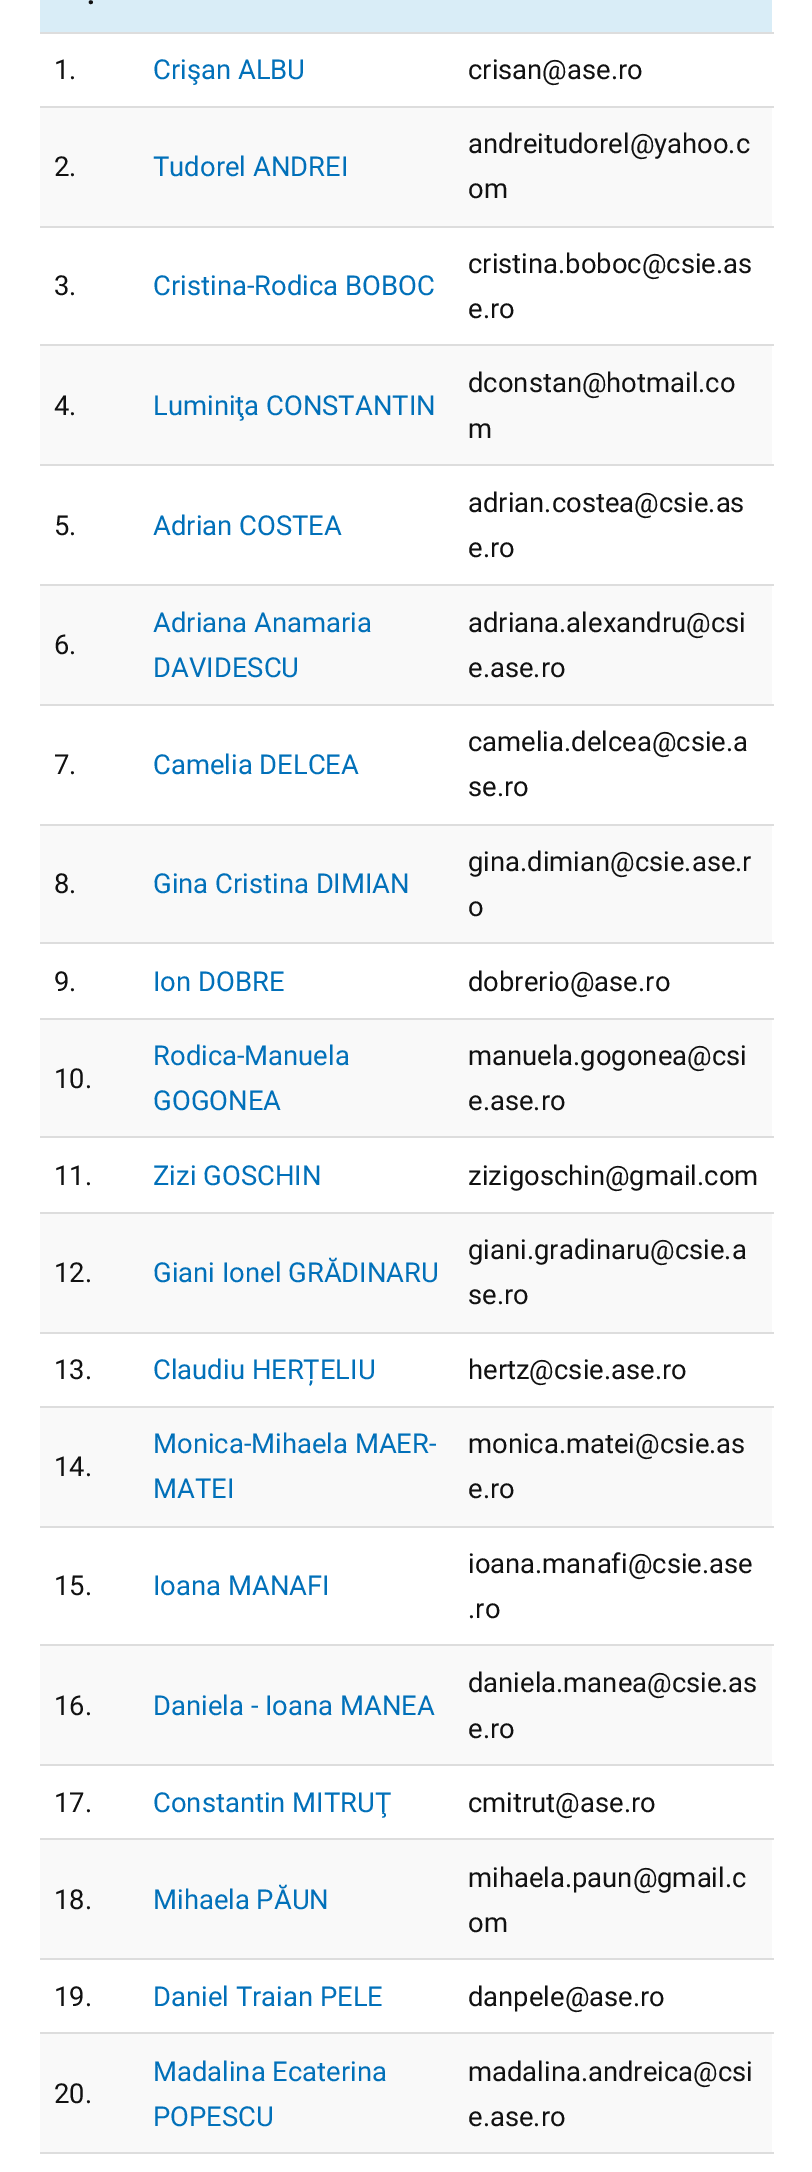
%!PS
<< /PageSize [812 2172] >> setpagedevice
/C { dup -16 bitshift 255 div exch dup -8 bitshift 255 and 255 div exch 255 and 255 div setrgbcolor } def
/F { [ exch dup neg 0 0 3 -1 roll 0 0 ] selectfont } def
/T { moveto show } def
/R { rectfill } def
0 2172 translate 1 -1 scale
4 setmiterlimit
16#FFFFFF C
0 0 812 2172 R
16#D9EDF7 C
40 0 732 32 R
/Roboto-Bold 27.4 F
16#111111 C
(.) 87 4 T
/Roboto-Regular 27.4 F
(1.) 54 79 T
16#0170B9 C
(Crişan ALBU) 153 79 T
16#DDDDDD C
40 32 734 2 R
16#111111 C
(crisan@ase.ro) 468 79 T
16#F9F9F9 C
40 108 732 118 R
16#111111 C
(2.) 54 176 T
16#0170B9 C
(Tudorel ANDREI) 153 176 T
16#DDDDDD C
40 106 734 2 R
16#111111 C
(andreitudorel@yahoo.c) 468 153 T
(om) 468 198 T
(3.) 54 295 T
16#0170B9 C
(Cristina-Rodica BOBOC) 153 295 T
16#DDDDDD C
40 226 734 2 R
16#111111 C
(cristina.boboc@csie.as) 468 273 T
(e.ro) 468 318 T
16#F9F9F9 C
40 346 732 118 R
16#111111 C
(4.) 54 415 T
16#0170B9 C
(Luminiţa CONSTANTIN) 153 415 T
16#DDDDDD C
40 344 734 2 R
16#111111 C
(dconstan@hotmail.co) 468 392 T
(m) 468 438 T
(5.) 54 535 T
16#0170B9 C
(Adrian COSTEA) 153 535 T
16#DDDDDD C
40 464 734 2 R
16#111111 C
(adrian.costea@csie.as) 468 512 T
(e.ro) 468 557 T
16#F9F9F9 C
40 586 732 118 R
16#111111 C
(6.) 54 654 T
16#0170B9 C
(Adriana Anamaria) 153 632 T
(DAVIDESCU) 153 677 T
16#DDDDDD C
40 584 734 2 R
16#111111 C
(adriana.alexandru@csi) 468 632 T
(e.ase.ro) 468 677 T
(7.) 54 774 T
16#0170B9 C
(Camelia DELCEA) 153 774 T
16#DDDDDD C
40 704 734 2 R
16#111111 C
(camelia.delcea@csie.a) 468 751 T
(se.ro) 468 796 T
16#F9F9F9 C
40 826 732 116 R
16#111111 C
(8.) 54 893 T
16#0170B9 C
(Gina Cristina DIMIAN) 153 893 T
16#DDDDDD C
40 824 734 2 R
16#111111 C
(gina.dimian@csie.ase.r) 468 871 T
(o) 468 916 T
(9.) 54 991 T
16#0170B9 C
(Ion DOBRE) 153 991 T
16#DDDDDD C
40 942 734 2 R
16#111111 C
(dobrerio@ase.ro) 468 991 T
16#F9F9F9 C
40 1020 732 116 R
16#111111 C
(10.) 54 1088 T
16#0170B9 C
(Rodica-Manuela) 153 1065 T
(GOGONEA) 153 1110 T
16#DDDDDD C
40 1018 734 2 R
16#111111 C
(manuela.gogonea@csi) 468 1065 T
(e.ase.ro) 468 1110 T
(11.) 54 1185 T
16#0170B9 C
(Zizi GOSCHIN) 153 1185 T
16#DDDDDD C
40 1136 734 2 R
16#111111 C
(zizigoschin@gmail.com) 468 1185 T
16#F9F9F9 C
40 1214 732 118 R
16#111111 C
(12.) 54 1282 T
16#0170B9 C
(Giani Ionel GRĂDINARU) 153 1282 T
16#DDDDDD C
40 1212 734 2 R
16#111111 C
(giani.gradinaru@csie.a) 468 1259 T
(se.ro) 468 1304 T
(13.) 54 1379 T
16#0170B9 C
(Claudiu HERȚELIU) 153 1379 T
16#DDDDDD C
40 1332 734 2 R
16#111111 C
(hertz@csie.ase.ro) 468 1379 T
16#F9F9F9 C
40 1408 732 118 R
16#111111 C
(14.) 54 1476 T
16#0170B9 C
(Monica-Mihaela MAER-) 153 1453 T
(MATEI) 153 1498 T
16#DDDDDD C
40 1406 734 2 R
16#111111 C
(monica.matei@csie.as) 468 1453 T
(e.ro) 468 1498 T
(15.) 54 1595 T
16#0170B9 C
(Ioana MANAFI) 153 1595 T
16#DDDDDD C
40 1526 734 2 R
16#111111 C
(ioana.manafi@csie.ase) 468 1573 T
(.ro) 468 1618 T
16#F9F9F9 C
40 1646 732 118 R
16#111111 C
(16.) 54 1715 T
16#0170B9 C
(Daniela - Ioana MANEA) 153 1715 T
16#DDDDDD C
40 1644 734 2 R
16#111111 C
(daniela.manea@csie.as) 468 1692 T
(e.ro) 468 1738 T
(17.) 54 1812 T
16#0170B9 C
(Constantin MITRUŢ) 153 1812 T
16#DDDDDD C
40 1764 734 2 R
16#111111 C
(cmitrut@ase.ro) 468 1812 T
16#F9F9F9 C
40 1840 732 118 R
16#111111 C
(18.) 54 1909 T
16#0170B9 C
(Mihaela PĂUN) 153 1909 T
16#DDDDDD C
40 1838 734 2 R
16#111111 C
(mihaela.paun@gmail.c) 468 1887 T
(om) 468 1932 T
(19.) 54 2006 T
16#0170B9 C
(Daniel Traian PELE) 153 2006 T
16#DDDDDD C
40 1958 734 2 R
16#111111 C
(danpele@ase.ro) 468 2006 T
16#F9F9F9 C
40 2034 732 118 R
16#111111 C
(20.) 54 2103 T
16#0170B9 C
(Madalina Ecaterina) 153 2081 T
(POPESCU) 153 2126 T
16#DDDDDD C
40 2032 734 2 R
16#111111 C
(madalina.andreica@csi) 468 2081 T
(e.ase.ro) 468 2126 T
16#DDDDDD C
40 2152 734 2 R
showpage
